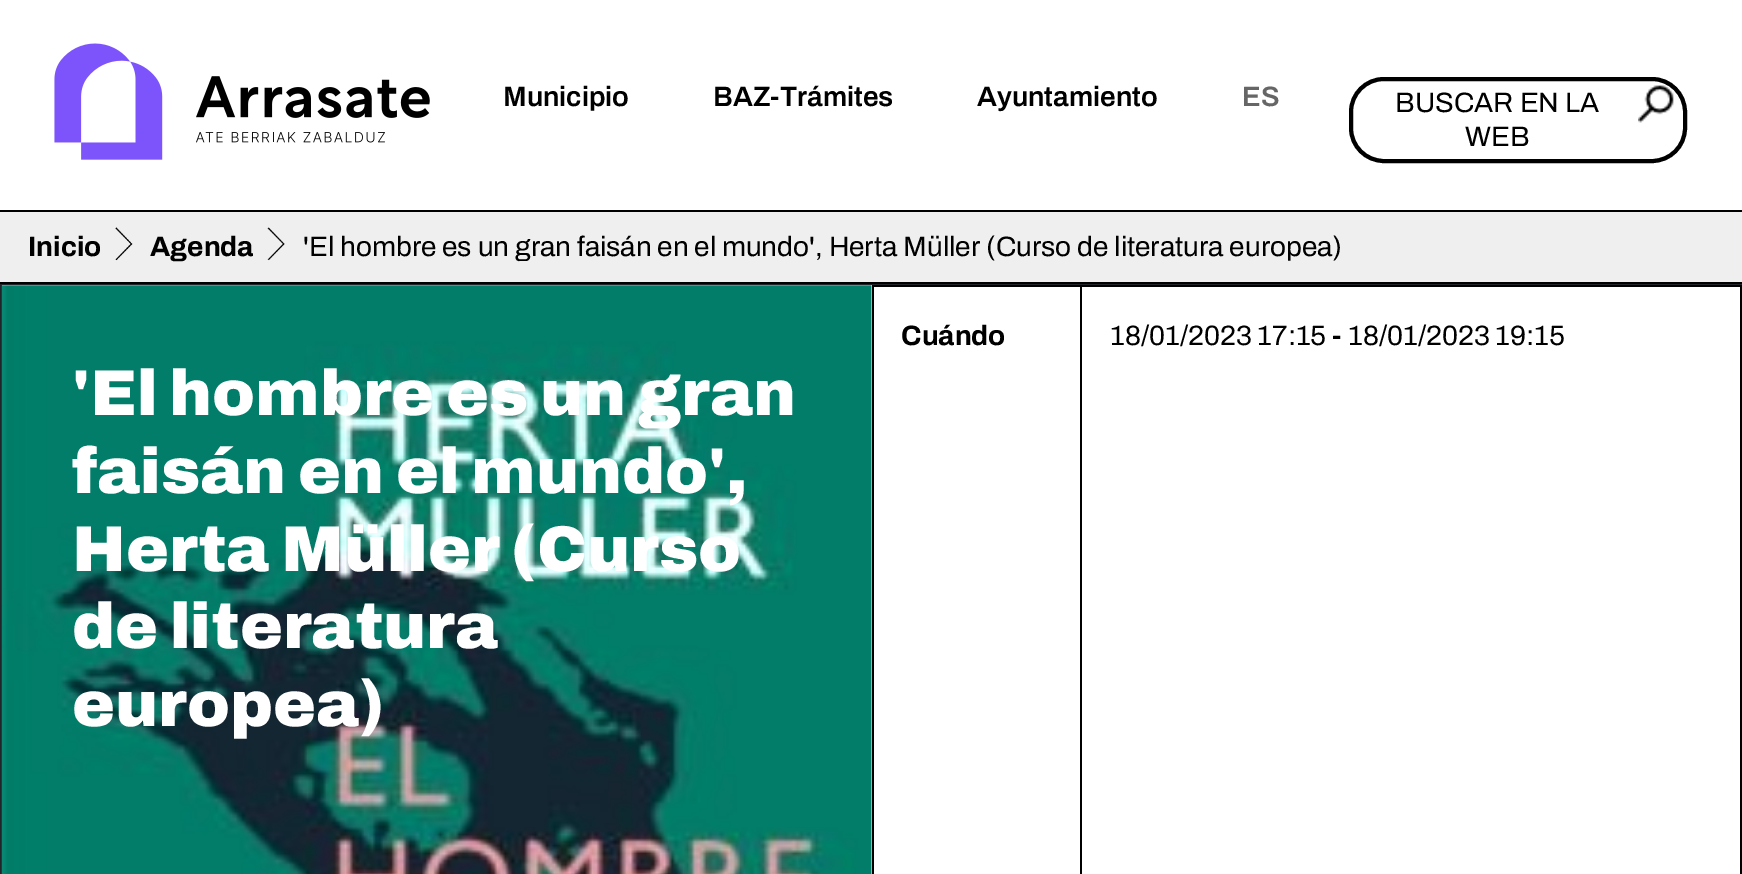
%!PS
<< /PageSize [1742 874] >> setpagedevice
/s/stroke load def
/w/setlinewidth load def
/C { dup -16 bitshift 255 div exch dup -8 bitshift 255 and 255 div exch 255 and 255 div setrgbcolor } def
/F { [ exch dup neg 0 0 3 -1 roll 0 0 ] selectfont } def
/T { moveto show } def
/R { rectfill } def
/Q { 5 dict begin { /r /h /w /y /x } { exch def } forall
  x r add y moveto x w add y 2 copy h add r arct x w add y h add x 1 index r arct
  x y h add x y r arct x y 2 copy exch w add exch r arct closepath end } def
/I { 5 dict begin { /h /w /y /x /name } { exch def } forall
  gsave x y translate w h scale
  w h 8 [w 0 0 h 0 0] name (r) file false 3 colorimage grestore end } def
0 874 translate 1 -1 scale
4 setmiterlimit
16#FFFFFF C
0 0 1742 874 R
(1.rgb) 54 43 376 117 I
/Archivo-SemiBold 28 F
16#000000 C
(Municipio) 503 106 T
(BAZ-Trámites) 713 106 T
(Ayuntamiento) 977 106 T
16#666666 C
(ES) 1242 106 T
(2.rgb) 1638 85 36 38 I
16#000000 C
4 w
1351 79 334 82 33 Q s
/Archivo-Regular 28 F
(BUSCAR EN LA) 1395 112 T
(WEB) 1465 146 T
16#EFEFEF C
0 212 1742 70 R
16#000000 C
0 210 1742 2 R
0 282 1742 2 R
/Archivo-Bold 28 F
(Inicio) 28 256 T
(3.rgb) 115 227 18 34 I
(Agenda) 150 256 T
(4.rgb) 267 227 18 34 I
/Archivo-Regular 28 F
('El hombre es un gran faisán en el mundo', Herta Müller \(Curso de literatura europea\)) 303 256 T
16#212529 C
2 w
1 285 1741 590 rectstroke
16#000000 C
1080 285 661 2 R
1080 285 2 589 R
872 285 210 2 R
872 285 2 589 R
/Archivo-Bold 28 F
(Cuándo) 901 345 T
1740 285 2 589 R
/Archivo-Regular 28 F
(18/01/2023 17:15) 1110 345 T
/Archivo-Bold 28 F
(-) 1332 345 T
/Archivo-Regular 28 F
(18/01/2023 19:15) 1348 345 T
16#FFFFFF C
2 285 870 1 R
(5.rgb) 1 285 871 589 I
/Archivo-Black 64.6 F
('El hombre es un gran) 72 415 T
(faisán en el mundo',) 72 493 T
(Herta Müller \(Curso) 72 571 T
(de literatura) 72 648 T
(europea\)) 72 726 T
showpage
